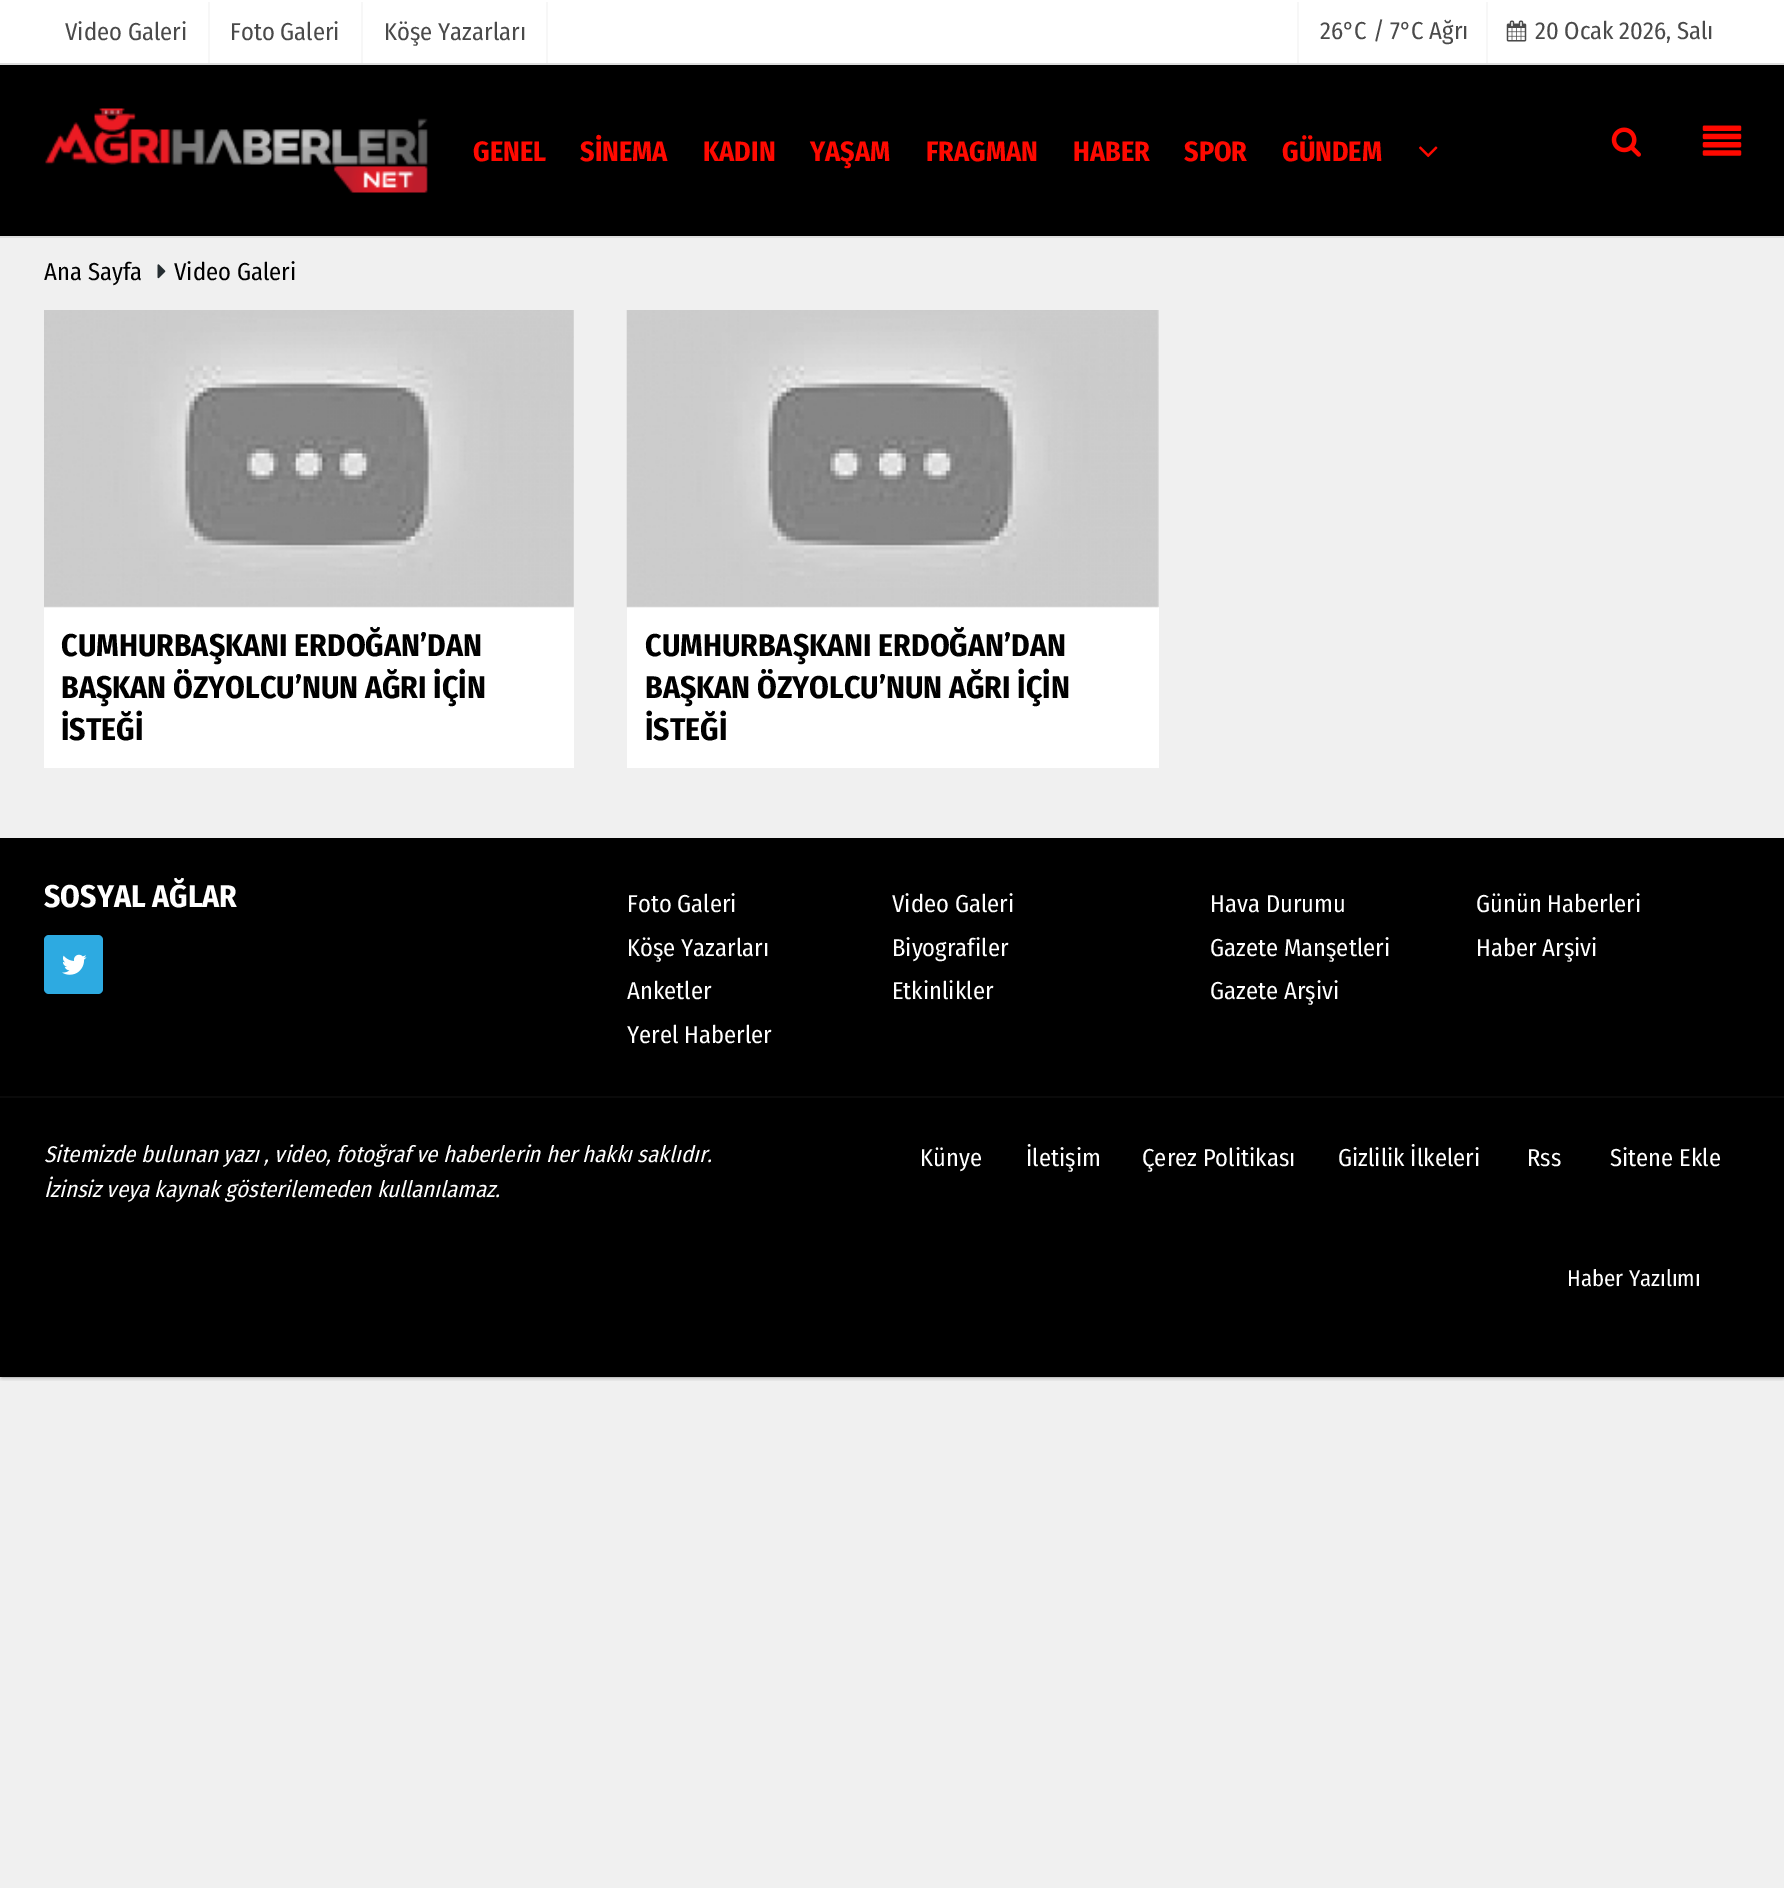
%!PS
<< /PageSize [1784 1888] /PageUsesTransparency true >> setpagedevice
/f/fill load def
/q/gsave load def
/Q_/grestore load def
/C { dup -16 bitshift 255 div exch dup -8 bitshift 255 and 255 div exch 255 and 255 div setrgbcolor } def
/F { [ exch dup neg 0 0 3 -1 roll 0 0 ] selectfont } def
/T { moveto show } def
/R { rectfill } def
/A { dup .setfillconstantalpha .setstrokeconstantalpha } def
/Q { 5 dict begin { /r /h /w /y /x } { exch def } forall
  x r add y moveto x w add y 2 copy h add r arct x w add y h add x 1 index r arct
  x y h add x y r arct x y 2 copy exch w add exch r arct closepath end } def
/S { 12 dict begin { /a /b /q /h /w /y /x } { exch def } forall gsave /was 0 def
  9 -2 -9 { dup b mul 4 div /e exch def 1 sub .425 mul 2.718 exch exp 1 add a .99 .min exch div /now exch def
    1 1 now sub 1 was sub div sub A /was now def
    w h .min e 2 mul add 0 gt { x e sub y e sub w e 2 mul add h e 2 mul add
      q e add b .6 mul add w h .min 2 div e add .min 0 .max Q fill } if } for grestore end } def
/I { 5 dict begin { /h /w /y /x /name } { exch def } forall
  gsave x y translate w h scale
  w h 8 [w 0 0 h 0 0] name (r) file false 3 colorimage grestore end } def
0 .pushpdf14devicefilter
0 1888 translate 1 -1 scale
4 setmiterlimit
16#F0F0F0 C
0 0 1784 1888 R
q
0 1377 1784 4 rectclip
16#000000 C
2 2 1781 1374 0 2.5 .7 S
Q_
16#FFFFFF C
0 0 1784 63 R
16#F7F7F7 C
208 2 2 63 R
/FiraSansCondensed-Regular 24.5 F
16#4A4A4A C
(Video Galeri) 65 40 T
16#F7F7F7 C
361 2 2 63 R
16#4A4A4A C
(Foto Galeri) 230 40 T
16#F7F7F7 C
546 2 2 63 R
16#4A4A4A C
(Köşe Yazarları) 384 40 T
16#F7F7F7 C
1486 2 2 61 R
1297 2 2 61 R
16#4A4A4A C
(26°C / 7°C Ağrı) 1320 39 T
(1.rgb) 1506 20 21 22 I
(20 Ocak 2026, Salı) 1535 39 T
16#000000 C
0 65 1784 171 R
16#DEDEDE C
0 63 1784 2 R
0 236 1784 2 R
(2.rgb) 45 108 383 85 I
/FiraSansCondensed-Bold 28 F
16#FF0900 C
(GENEL) 473 161 T
(SİNEMA) 580 161 T
(KADIN) 703 161 T
(YAŞAM) 810 161 T
(FRAGMAN) 926 161 T
(HABER) 1073 161 T
(SPOR) 1184 161 T
(GÜNDEM) 1282 161 T
(3.rgb) 1419 146 19 12 I
(4.rgb) 1611 127 30 30 I
(5.rgb) 1702 125 40 31 I
/FiraSansCondensed-Regular 24.5 F
16#000000 C
(Ana Sayfa) 44 280 T
(6.rgb) 157 264 9 15 I
(Video Galeri) 174 280 T
16#FFFFFF C
44 607 530 161 R
(7.rgb) 44 310 530 298 I
/FiraSansCondensed-Bold 31.5 F
16#000000 C
(CUMHURBAŞKANI ERDOĞAN’DAN) 61 656 T
(BAŞKAN ÖZYOLCU’NUN AĞRI İÇİN) 61 698 T
(İSTEĞİ) 61 740 T
16#FFFFFF C
627 607 532 161 R
(8.rgb) 626 310 533 298 I
16#000000 C
(CUMHURBAŞKANI ERDOĞAN’DAN) 645 656 T
(BAŞKAN ÖZYOLCU’NUN AĞRI İÇİN) 645 698 T
(İSTEĞİ) 645 740 T
0 838 1784 539 R
16#FFFFFF C
(SOSYAL AĞLAR) 44 907 T
16#2DAAE1 C
44 935 59 59 5 Q f
(9.rgb) 62 954 25 21 I
/FiraSansCondensed-Regular 24.5 F
16#FFFFFF C
(Foto Galeri) 627 912 T
(Video Galeri) 892 912 T
(Köşe Yazarları) 627 956 T
(Biyografiler) 892 956 T
(Anketler) 627 999 T
(Etkinlikler) 892 999 T
(Yerel Haberler) 627 1043 T
(Hava Durumu) 1210 912 T
(Günün Haberleri) 1476 912 T
(Gazete Manşetleri) 1210 956 T
(Haber Arşivi) 1476 956 T
(Gazete Arşivi) 1210 999 T
16#0A0A0A C
0 1096 1784 2 R
/FiraSansCondensed-Italic 22.75 F
16#FFFFFF C
(Sitemizde bulunan yazı , video, fotoğraf ve haberlerin her hakkı saklıdır.) 44 1162 T
(İzinsiz veya kaynak gösterilemeden kullanılamaz.) 44 1197 T
/FiraSansCondensed-Regular 24.5 F
(Künye) 920 1166 T
(İletişim) 1026 1166 T
(Çerez Politikası) 1142 1166 T
(Gizlilik İlkeleri) 1338 1166 T
(Rss) 1527 1166 T
(Sitene Ekle) 1610 1166 T
/FiraSansCondensed-Regular 22.75 F
(Haber Yazılımı) 1567 1286 T
.poppdf14devicefilter showpage
